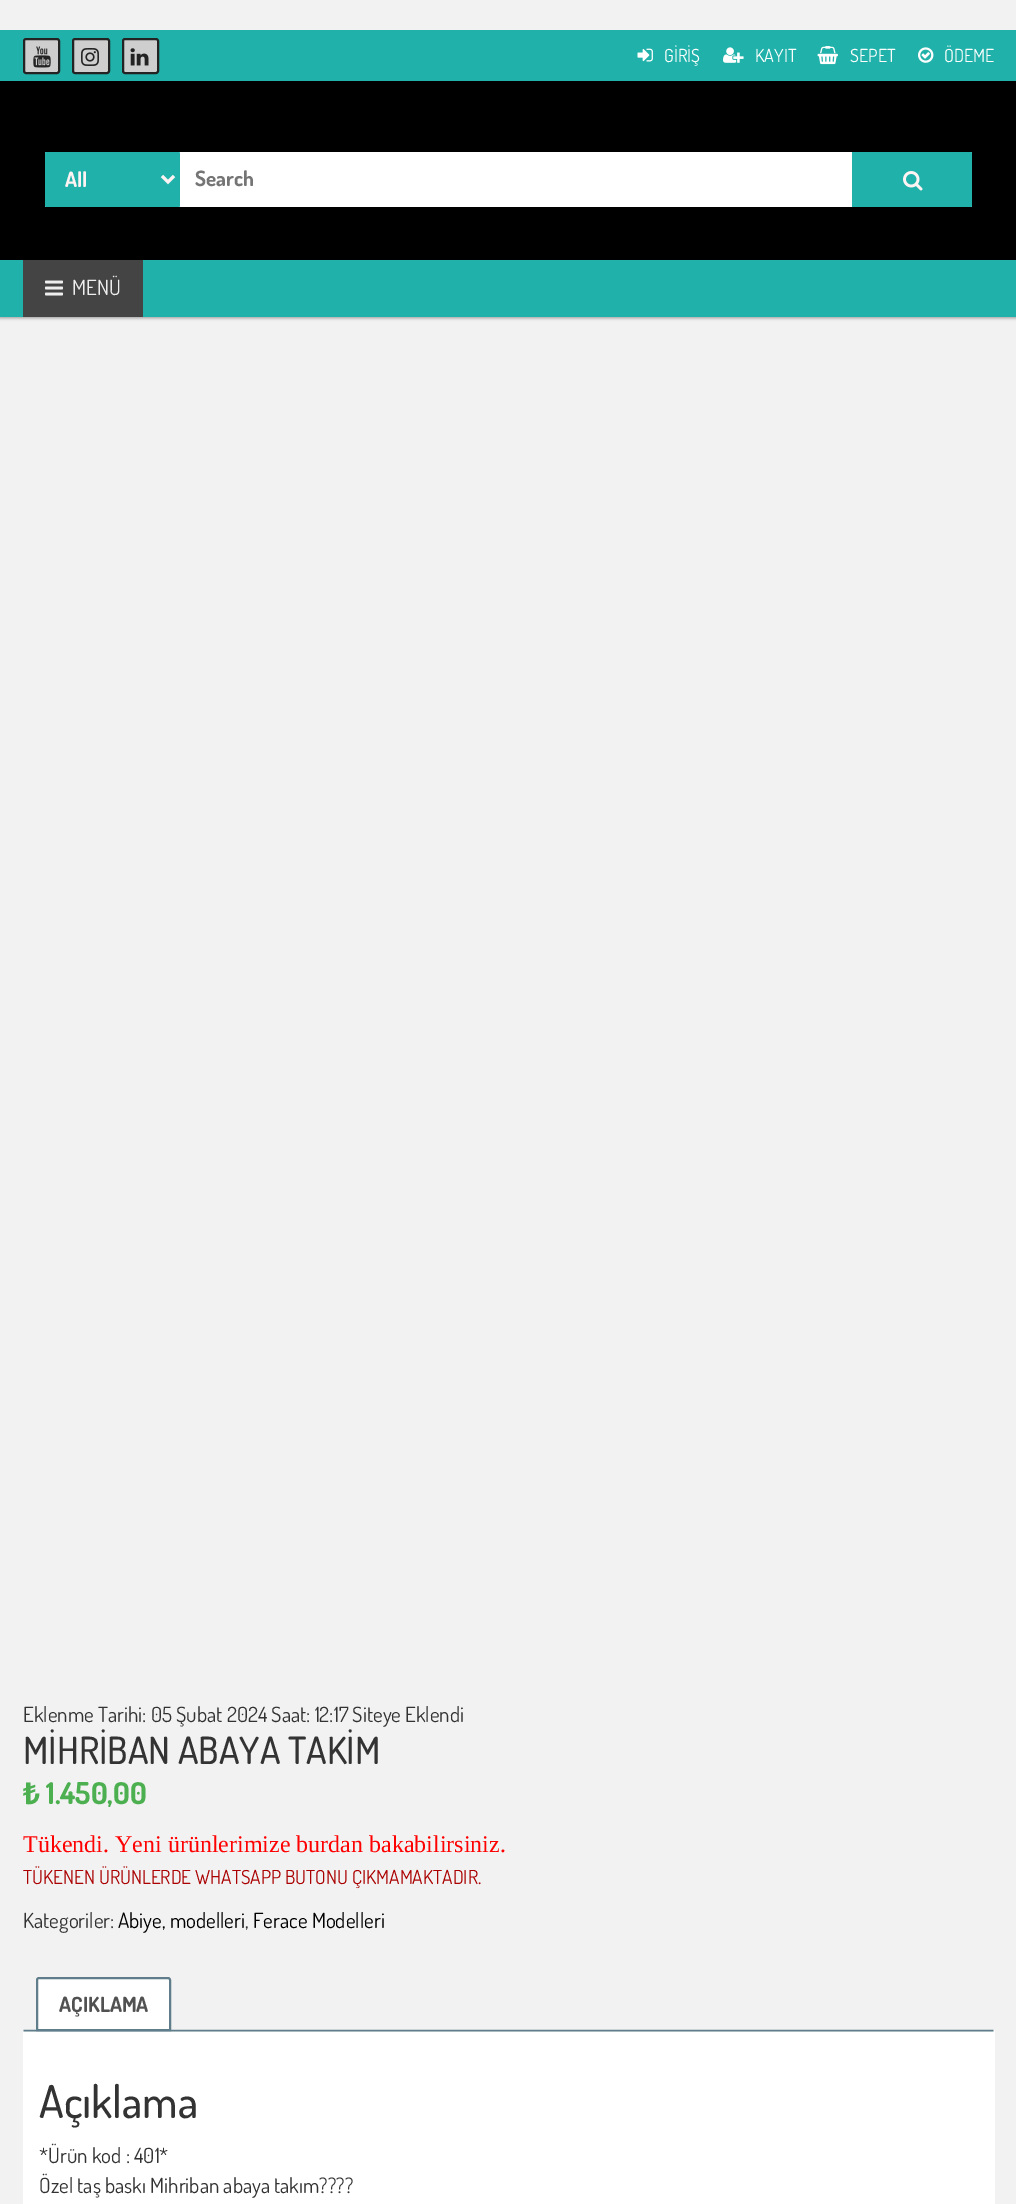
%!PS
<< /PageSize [1016 2204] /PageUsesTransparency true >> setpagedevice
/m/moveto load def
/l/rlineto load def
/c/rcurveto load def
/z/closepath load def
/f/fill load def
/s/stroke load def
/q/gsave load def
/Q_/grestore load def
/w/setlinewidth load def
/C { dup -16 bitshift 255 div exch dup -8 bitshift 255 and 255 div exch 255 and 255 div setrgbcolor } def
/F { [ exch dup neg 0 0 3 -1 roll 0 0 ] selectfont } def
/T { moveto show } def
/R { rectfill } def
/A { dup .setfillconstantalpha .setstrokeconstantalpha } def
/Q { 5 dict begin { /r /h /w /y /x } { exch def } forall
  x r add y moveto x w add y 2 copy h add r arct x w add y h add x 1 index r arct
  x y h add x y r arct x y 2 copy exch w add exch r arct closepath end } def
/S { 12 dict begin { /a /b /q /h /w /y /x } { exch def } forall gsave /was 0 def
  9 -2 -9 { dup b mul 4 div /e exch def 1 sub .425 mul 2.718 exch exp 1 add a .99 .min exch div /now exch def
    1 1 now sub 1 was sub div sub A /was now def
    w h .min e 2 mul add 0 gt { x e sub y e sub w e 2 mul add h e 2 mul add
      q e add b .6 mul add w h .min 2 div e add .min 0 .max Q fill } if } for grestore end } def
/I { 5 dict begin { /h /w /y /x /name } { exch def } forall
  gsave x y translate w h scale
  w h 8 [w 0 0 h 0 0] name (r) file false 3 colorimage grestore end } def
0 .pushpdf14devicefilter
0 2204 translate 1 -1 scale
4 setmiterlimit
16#F2F2F2 C
0 0 1016 2204 R
16#000000 C
0 81 1016 179 R
16#20B2AA C
0 30 1016 51 R
16#CECECE C
24 39 35 34 2 Q q f Q_
16#232323 C
2 w
s
(1.rgb) 33 46 18 22 I
16#CECECE C
73 39 36 34 2 Q q f Q_
16#232323 C
s
(2.rgb) 81 48 18 18 I
16#CECECE C
123 39 35 34 2 Q q f Q_
16#232323 C
s
(3.rgb) 130 48 19 18 I
(4.rgb) 637 48 16 14 I
/Dosis-Regular 18 F
16#FFFFFF C
(GİRİŞ) 664 62 T
(5.rgb) 723 47 21 16 I
(KAYIT) 755 62 T
(6.rgb) 817 46 21 19 I
(SEPET) 850 62 T
(7.rgb) 918 47 16 16 I
(ÖDEME) 944 62 T
45 152 927 55 1.5 Q f
16#20B2AA C
45 152 135 55 1.5 Q f
16#FFF3F3 C
3 w
162 176 m 6 6 l 6 -6 l s
/Dosis-Bold 21 F
(All) 65 187 T
16#757575 C
(Search) 195 186 T
16#20B2AA C
852 152 m 118.5 0 l 1 0 1.5 .5 1.5 1.5 c 0 52 l 0 1 -.5 1.5 -1.5 1.5 c -118.5 0 l z f
(8.rgb) 903 171 20 20 I
16#000000 C
0 261 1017 57 0 1.5 .35 S
16#20B2AA C
0 260 1016 57 R
16#444444 C
23 260 120 57 R
(9.rgb) 45 280 18 16 I
/Dosis-Regular 21 F
16#EEEEEE C
(MENÜ) 72 295 T
16#333333 C
(Eklenme Tarihi: 05 Şubat 2024 Saat: 12:17 Siteye Eklendi) 23 1722 T
/Dosis-Medium 37.5 F
(MİHRİBAN ABAYA TAKİM) 23 1764 T
/NotoSans-Bold 30 F
16#4CAF50 C
(₺) 23 1804 T
/Dosis-Bold 30 F
(1.450,00) 46 1804 T
/LiberationSerif-Regular 24 F
16#FF0000 C
(Tükendi. Yeni ürünlerimize burdan bakabilirsiniz.) 23 1852 T
/Dosis-Regular 19.3 F
16#AA0000 C
(TÜKENEN ÜRÜNLERDE WHATSAPP BUTONU ÇIKMAMAKTADIR.) 23 1884 T
/Dosis-Regular 21 F
16#333333 C
(Kategoriler:) 23 1928 T
16#000000 C
(Abiye, modelleri) 118 1928 T
16#333333 C
(,) 245 1928 T
16#000000 C
(Ferace Modelleri) 253 1928 T
16#FFFFFF C
23 2030 972 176 1.5 Q f
16#607D8B C
1.5 w
23.5 2030.5 m 970 0 l s
16#FFFFFF C
39 1978 m 129 0 l 1 0 2 1 2 2 c 0 50 l -133 0 l 0 -50 l 0 -1 1 -2 2 -2 c z q f Q_
16#607D8B C
2 w
s
/Dosis-Bold 21 F
16#515151 C
(AÇIKLAMA) 59 2012 T
/Dosis-Medium 45 F
16#333333 C
(Açıklama) 39 2118 T
/Dosis-Regular 21 F
(*Ürün kod : 401*) 39 2163 T
(Özel taş baskı Mihriban abaya takım????) 39 2193 T
.poppdf14devicefilter showpage
